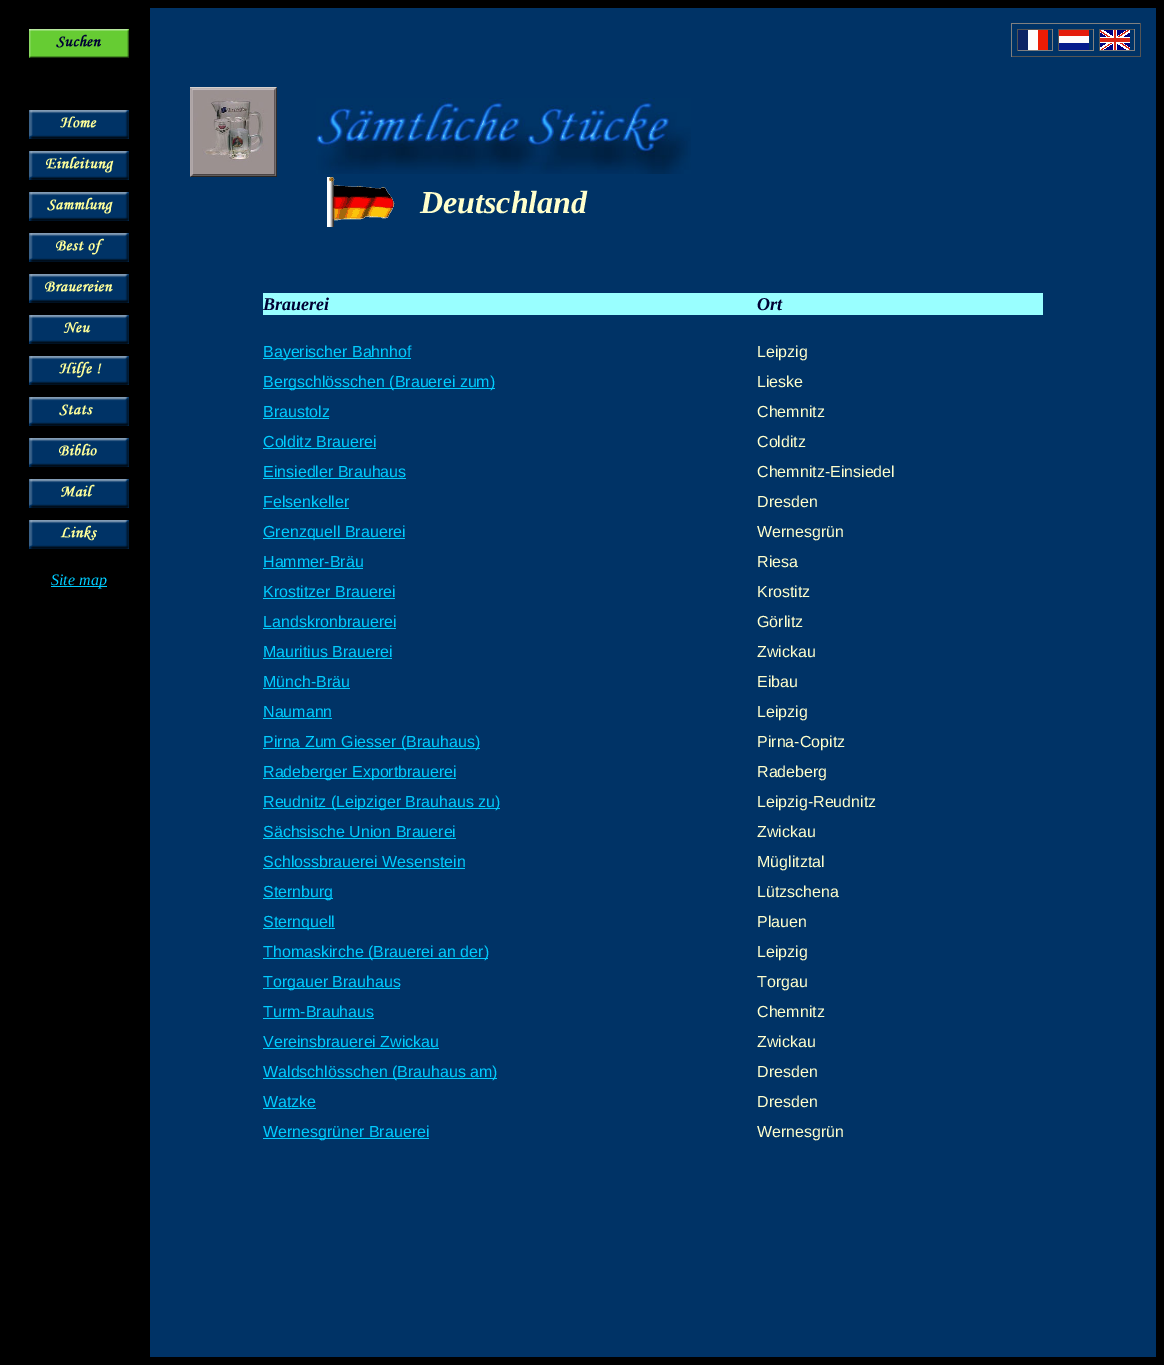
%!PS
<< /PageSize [1164 1365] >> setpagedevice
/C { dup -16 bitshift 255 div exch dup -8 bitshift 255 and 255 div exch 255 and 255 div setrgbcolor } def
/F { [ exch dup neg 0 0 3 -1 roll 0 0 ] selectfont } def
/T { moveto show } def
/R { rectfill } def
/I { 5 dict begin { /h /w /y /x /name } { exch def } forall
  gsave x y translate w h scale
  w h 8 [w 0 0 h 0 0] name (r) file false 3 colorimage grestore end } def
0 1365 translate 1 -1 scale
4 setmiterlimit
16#000000 C
0 0 1164 1365 R
16#003366 C
150 8 1006 1349 R
(1.rgb) 190 87 87 90 I
(2.rgb) 316 98 375 76 I
(3.rgb) 327 177 68 50 I
/LiberationSerif-BoldItalic 32 F
16#FFFFCC C
(Deutschland) 420 213 T
(4.rgb) 29 29 100 29 I
(5.rgb) 29 110 100 29 I
(6.rgb) 29 151 100 29 I
(7.rgb) 29 192 100 29 I
(8.rgb) 29 233 100 29 I
(9.rgb) 29 274 100 29 I
(10.rgb) 29 315 100 29 I
(11.rgb) 29 356 100 29 I
(12.rgb) 29 397 100 29 I
(13.rgb) 29 438 100 29 I
(14.rgb) 29 479 100 29 I
(15.rgb) 29 520 100 29 I
16#00CCFF C
51 586 56 1 R
/LiberationSerif-Italic 16 F
(Site map) 51 585 T
16#808080 C
1011 23 130 1 R
16#555555 C
1140 23 1 34 R
1011 56 130 1 R
16#808080 C
1011 23 1 34 R
16#555555 C
1017 29 36 1 R
16#808080 C
1052 29 1 22 R
1017 50 36 1 R
16#555555 C
1017 29 1 22 R
(16.rgb) 1018 30 30 20 I
1058 29 36 1 R
16#808080 C
1093 29 1 22 R
1058 50 36 1 R
16#555555 C
1058 29 1 22 R
(17.rgb) 1059 30 30 20 I
1099 29 36 1 R
16#808080 C
1134 29 1 22 R
1099 50 36 1 R
16#555555 C
1099 29 1 22 R
(18.rgb) 1100 30 30 20 I
16#99FFFF C
263 293 780 22 R
/LiberationSerif-BoldItalic 18 F
16#000033 C
(Brauerei) 263 310 T
(Ort) 757 310 T
16#00CCFF C
263 358 148 1 R
/LiberationSans-Regular 16 F
(Bayerischer Bahnhof) 263 357 T
16#FFFFCC C
(Leipzig) 757 357 T
16#00CCFF C
263 388 232 1 R
(Bergschlösschen \(Brauerei zum\)) 263 387 T
16#FFFFCC C
(Lieske) 757 387 T
16#00CCFF C
(Braustolz) 263 417 T
263 418 66 1 R
16#FFFFCC C
(Chemnitz) 757 417 T
16#00CCFF C
(Colditz Brauerei) 263 447 T
263 448 113 1 R
16#FFFFCC C
(Colditz) 757 447 T
16#00CCFF C
(Einsiedler Brauhaus) 263 477 T
263 478 143 1 R
16#FFFFCC C
(Chemnitz-Einsiedel) 757 477 T
16#00CCFF C
(Felsenkeller) 263 507 T
263 508 86 1 R
16#FFFFCC C
(Dresden) 757 507 T
16#00CCFF C
263 538 142 1 R
(Grenzquell Brauerei) 263 537 T
16#FFFFCC C
(Wernesgrün) 757 537 T
16#00CCFF C
(Hammer-Bräu) 263 567 T
263 568 100 1 R
16#FFFFCC C
(Riesa) 757 567 T
16#00CCFF C
(Krostitzer Brauerei) 263 597 T
263 598 132 1 R
16#FFFFCC C
(Krostitz) 757 597 T
16#00CCFF C
(Landskronbrauerei) 263 627 T
263 628 133 1 R
16#FFFFCC C
(Görlitz) 757 627 T
16#00CCFF C
(Mauritius Brauerei) 263 657 T
263 658 129 1 R
16#FFFFCC C
(Zwickau) 757 657 T
16#00CCFF C
(Münch-Bräu) 263 687 T
263 688 87 1 R
16#FFFFCC C
(Eibau) 757 687 T
16#00CCFF C
(Naumann) 263 717 T
263 718 69 1 R
16#FFFFCC C
(Leipzig) 757 717 T
16#00CCFF C
263 748 217 1 R
(Pirna Zum Giesser \(Brauhaus\)) 263 747 T
16#FFFFCC C
(Pirna-Copitz) 757 747 T
16#00CCFF C
263 778 193 1 R
(Radeberger Exportbrauerei) 263 777 T
16#FFFFCC C
(Radeberg) 757 777 T
16#00CCFF C
263 808 237 1 R
(Reudnitz \(Leipziger Brauhaus zu\)) 263 807 T
16#FFFFCC C
(Leipzig-Reudnitz) 757 807 T
16#00CCFF C
(Sächsische Union Brauerei) 263 837 T
263 838 193 1 R
16#FFFFCC C
(Zwickau) 757 837 T
16#00CCFF C
(Schlossbrauerei Wesenstein) 263 867 T
263 868 202 1 R
16#FFFFCC C
(Müglitztal) 757 867 T
16#00CCFF C
263 898 70 1 R
(Sternburg) 263 897 T
16#FFFFCC C
(Lützschena) 757 897 T
16#00CCFF C
263 928 72 1 R
(Sternquell) 263 927 T
16#FFFFCC C
(Plauen) 757 927 T
16#00CCFF C
263 958 225 1 R
(Thomaskirche \(Brauerei an der\)) 263 957 T
16#FFFFCC C
(Leipzig) 757 957 T
16#00CCFF C
263 988 137 1 R
(Torgauer Brauhaus) 263 987 T
16#FFFFCC C
(Torgau) 757 987 T
16#00CCFF C
(Turm-Brauhaus) 263 1017 T
263 1018 111 1 R
16#FFFFCC C
(Chemnitz) 757 1017 T
16#00CCFF C
(Vereinsbrauerei Zwickau) 263 1047 T
263 1048 176 1 R
16#FFFFCC C
(Zwickau) 757 1047 T
16#00CCFF C
263 1078 234 1 R
(Waldschlösschen \(Brauhaus am\)) 263 1077 T
16#FFFFCC C
(Dresden) 757 1077 T
16#00CCFF C
(Watzke) 263 1107 T
263 1108 53 1 R
16#FFFFCC C
(Dresden) 757 1107 T
16#00CCFF C
263 1138 166 1 R
(Wernesgrüner Brauerei) 263 1137 T
16#FFFFCC C
(Wernesgrün) 757 1137 T
showpage
